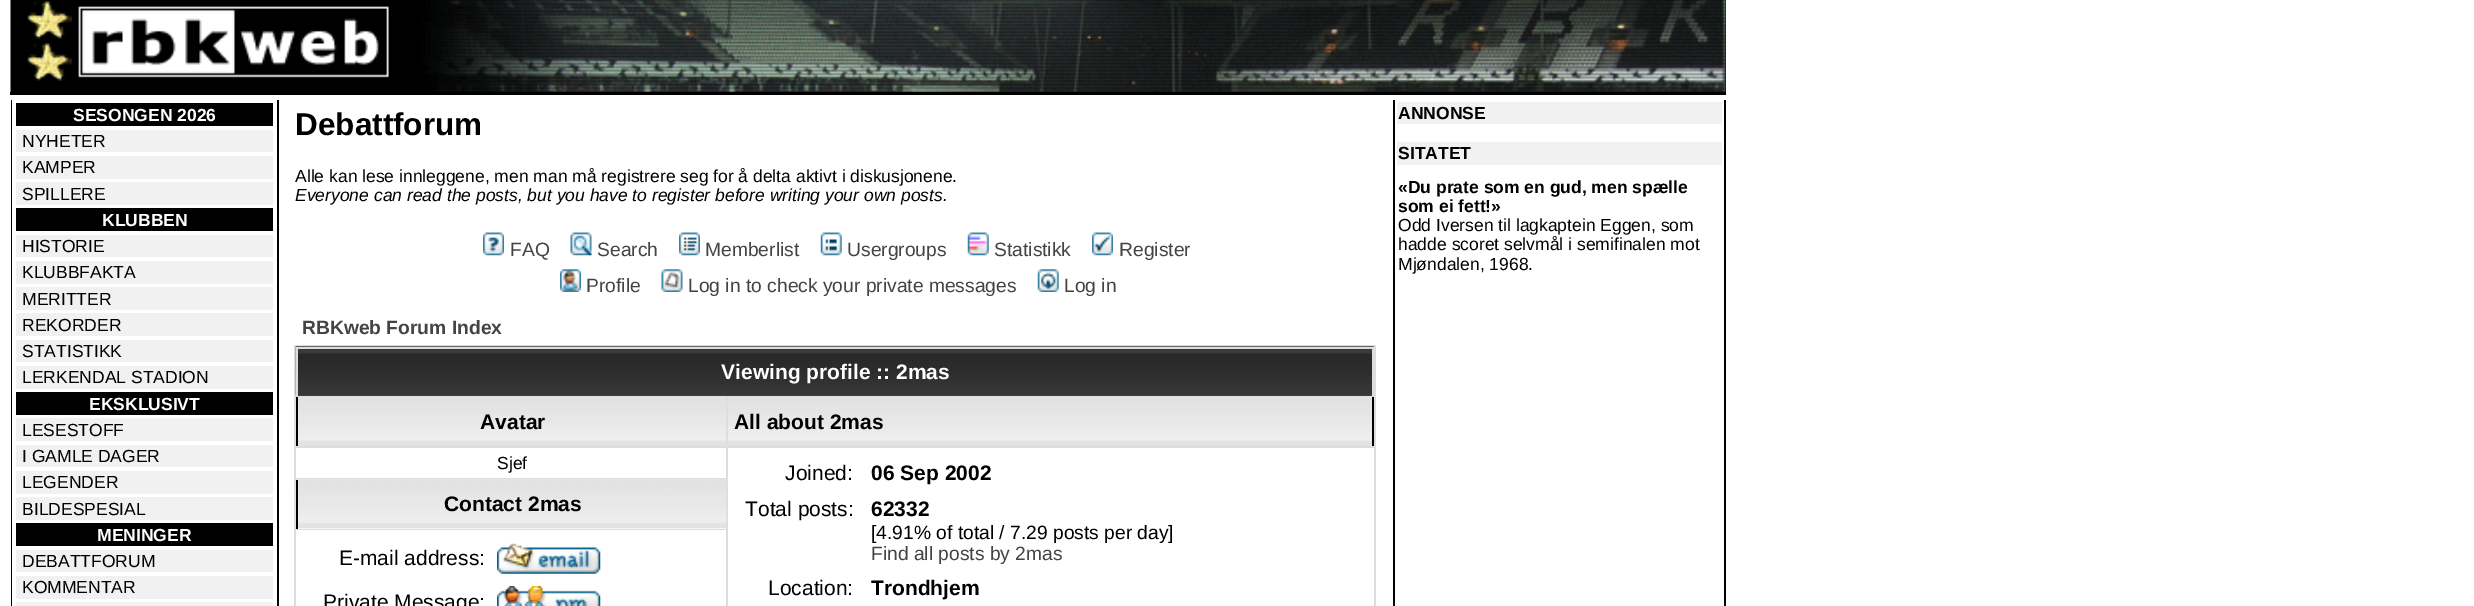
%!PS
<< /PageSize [2474 606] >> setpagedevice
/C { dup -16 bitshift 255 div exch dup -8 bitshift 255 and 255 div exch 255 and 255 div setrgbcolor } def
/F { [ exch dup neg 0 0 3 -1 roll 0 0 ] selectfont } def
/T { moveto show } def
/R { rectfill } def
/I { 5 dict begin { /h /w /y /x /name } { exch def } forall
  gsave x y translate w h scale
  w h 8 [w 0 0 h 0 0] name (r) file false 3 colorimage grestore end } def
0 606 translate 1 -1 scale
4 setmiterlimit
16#FFFFFF C
0 0 2474 606 R
16#000000 C
1725 0 1 95 R
(1.rgb) 10 0 1716 93 I
10 92 1715 3 R
11 100 1 506 R
16 103 257 23 R
/LiberationSans-Bold 17.5 F
16#FFFFFF C
(SESONGEN 2026) 73 121 T
16#F1F1F1 C
16 130 257 22 R
/LiberationSans-Regular 17.5 F
16#000000 C
(NYHETER) 22 147 T
16#F1F1F1 C
16 156 257 23 R
16#000000 C
(KAMPER) 22 173 T
16#F1F1F1 C
16 182 257 23 R
16#000000 C
(SPILLERE) 22 200 T
16 208 257 23 R
/LiberationSans-Bold 17.5 F
16#FFFFFF C
(KLUBBEN) 102 226 T
16#F1F1F1 C
16 235 257 22 R
/LiberationSans-Regular 17.5 F
16#000000 C
(HISTORIE) 22 252 T
16#F1F1F1 C
16 261 257 23 R
16#000000 C
(KLUBBFAKTA) 22 278 T
16#F1F1F1 C
16 287 257 23 R
16#000000 C
(MERITTER) 22 305 T
16#F1F1F1 C
16 313 257 23 R
16#000000 C
(REKORDER) 22 331 T
16#F1F1F1 C
16 340 257 22 R
16#000000 C
(STATISTIKK) 22 357 T
16#F1F1F1 C
16 366 257 23 R
16#000000 C
(LERKENDAL STADION) 22 383 T
16 392 257 23 R
/LiberationSans-Bold 17.5 F
16#FFFFFF C
(EKSKLUSIVT) 89 410 T
16#F1F1F1 C
16 418 257 23 R
/LiberationSans-Regular 17.5 F
16#000000 C
(LESESTOFF) 22 436 T
16#F1F1F1 C
16 445 257 22 R
16#000000 C
(I GAMLE DAGER) 22 462 T
16#F1F1F1 C
16 471 257 23 R
16#000000 C
(LEGENDER) 22 488 T
16#F1F1F1 C
16 497 257 23 R
16#000000 C
(BILDESPESIAL) 22 515 T
16 523 257 23 R
/LiberationSans-Bold 17.5 F
16#FFFFFF C
(MENINGER) 97 541 T
16#F1F1F1 C
16 550 257 22 R
/LiberationSans-Regular 17.5 F
16#000000 C
(DEBATTFORUM) 22 567 T
16#F1F1F1 C
16 576 257 23 R
16#000000 C
(KOMMENTAR) 22 593 T
16#F1F1F1 C
16 602 257 4 R
16#000000 C
277 100 2 506 R
/LiberationSans-Bold 31.5 F
(Debattforum) 295 135 T
/LiberationSans-Regular 17.5 F
(Alle kan lese innleggene, men man må registrere seg for å delta aktivt i diskusjonene.) 295 182 T
/LiberationSans-Italic 17.5 F
(Everyone can read the posts, but you have to register before writing your own posts.) 295 201 T
(2.rgb) 483 232 21 24 I
/LiberationSans-Regular 19.25 F
16#444444 C
(FAQ) 510 256 T
(3.rgb) 570 232 22 24 I
(Search) 597 256 T
(4.rgb) 679 232 21 24 I
(Memberlist) 705 256 T
(5.rgb) 820 232 22 24 I
(Usergroups) 847 256 T
(6.rgb) 967 232 22 24 I
(Statistikk) 994 256 T
(7.rgb) 1092 232 21 24 I
(Register) 1119 256 T
(8.rgb) 560 269 21 23 I
(Profile) 586 292 T
(9.rgb) 661 269 22 23 I
(Log in to check your private messages) 688 292 T
(10.rgb) 1037 269 22 23 I
(Log in) 1064 292 T
/LiberationSans-Bold 19.25 F
(RBKweb Forum Index) 302 334 T
16#DDDDDD C
294 345 1082 261 R
16#444444 C
298 395 1074 1 R
(11.rgb) 295 346 1079 50 I
16#DDDDDD C
296 347 1078 2 R
1372 347 2 49 R
296 347 2 49 R
/LiberationSans-Bold 21 F
16#FFFFFF C
(Viewing profile :: 2mas) 721 379 T
(12.rgb) 295 397 432 49 I
16#000000 C
296 397 2 49 R
(Avatar) 480 429 T
(13.rgb) 728 397 644 49 I
1372 397 2 49 R
(All about 2mas) 734 429 T
16#FFFFFF C
296 448 430 30 R
/LiberationSans-Regular 17.5 F
16#000000 C
(Sjef) 497 469 T
16#FFFFFF C
728 448 646 158 R
/LiberationSans-Regular 21 F
16#000000 C
(Joined:) 785 480 T
/LiberationSans-Bold 21 F
(06 Sep 2002) 871 480 T
/LiberationSans-Regular 21 F
(Total posts:) 745 516 T
/LiberationSans-Bold 21 F
(62332) 871 516 T
/LiberationSans-Regular 19.25 F
([4.91% of total / 7.29 posts per day]) 871 539 T
16#444444 C
(Find all posts by 2mas) 871 560 T
/LiberationSans-Regular 21 F
16#000000 C
(Location:) 768 595 T
/LiberationSans-Bold 21 F
(Trondhjem) 871 595 T
16#FFFFFF C
298 528 428 1 R
(14.rgb) 295 479 432 50 I
16#000000 C
296 480 2 49 R
(Contact 2mas) 444 511 T
16#FFFFFF C
296 530 430 76 R
/LiberationSans-Regular 21 F
16#000000 C
(E-mail address:) 339 565 T
(15.rgb) 497 543 104 31 I
(Private Message:) 323 609 T
(16.rgb) 497 586 104 20 I
1393 100 2 506 R
16#F1F1F1 C
1397 102 325 22 R
/LiberationSans-Bold 17.5 F
16#000000 C
(ANNONSE) 1398 119 T
16#F1F1F1 C
1397 142 325 23 R
16#000000 C
(SITATET) 1398 159 T
(«Du prate som en gud, men spælle) 1398 193 T
(som ei fett!») 1398 212 T
/LiberationSans-Regular 17.5 F
(Odd Iversen til lagkaptein Eggen, som) 1398 231 T
(hadde scoret selvmål i semifinalen mot) 1398 250 T
(Mjøndalen, 1968.) 1398 270 T
1724 100 2 506 R
showpage
